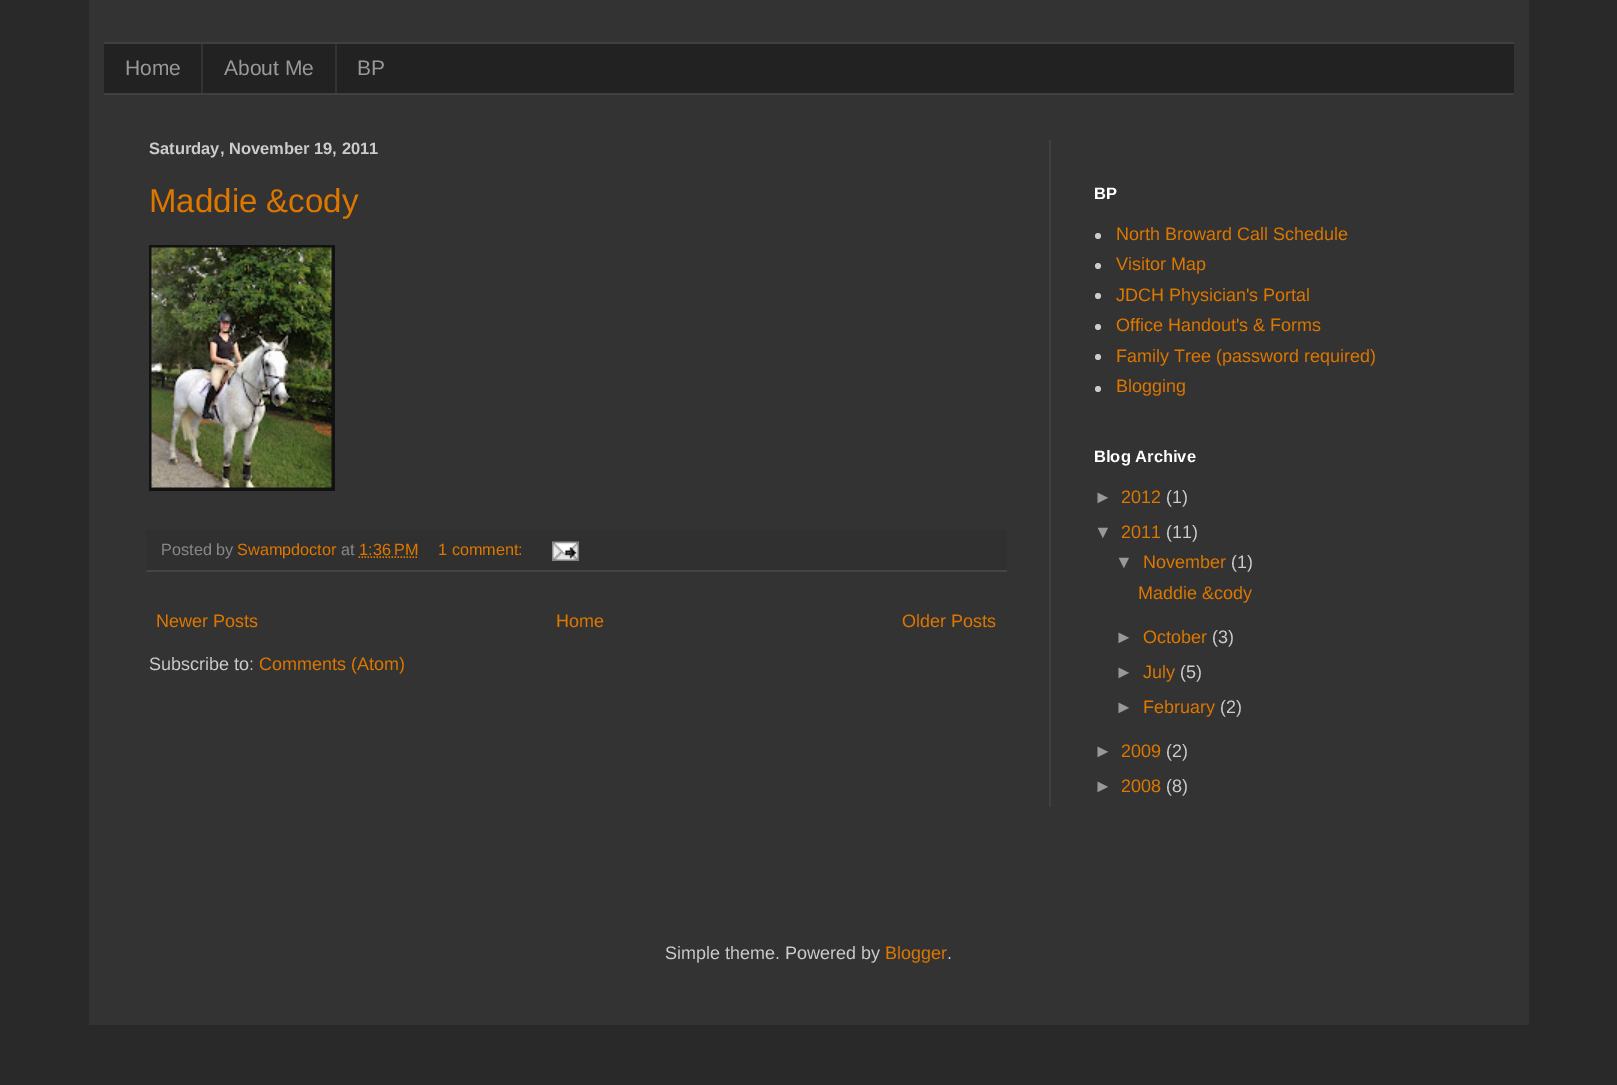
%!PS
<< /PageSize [1617 1085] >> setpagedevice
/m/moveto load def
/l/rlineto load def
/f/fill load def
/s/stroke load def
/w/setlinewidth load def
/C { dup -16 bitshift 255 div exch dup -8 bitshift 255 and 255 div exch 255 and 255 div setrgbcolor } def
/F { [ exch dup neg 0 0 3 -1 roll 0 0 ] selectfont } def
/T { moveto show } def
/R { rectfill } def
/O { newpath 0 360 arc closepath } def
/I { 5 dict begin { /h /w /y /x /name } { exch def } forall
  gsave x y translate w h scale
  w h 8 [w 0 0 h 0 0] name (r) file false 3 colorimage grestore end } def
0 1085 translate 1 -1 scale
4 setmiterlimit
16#292929 C
0 0 1617 1085 R
16#333333 C
89 0 1440 1025 R
16#222222 C
104 44 1410 49 R
16#404040 C
104 42 1410 2 R
104 93 1410 2 R
/LiberationSans-Regular 21 F
16#999999 C
(Home) 125 75 T
16#333333 C
201 44 2 49 R
16#999999 C
(About Me) 224 75 T
16#333333 C
335 44 2 49 R
16#999999 C
(BP) 357 75 T
16#404040 C
1049 140 2 667 R
/LiberationSans-Bold 16.5 F
16#CCCCCC C
(Saturday, November 19, 2011) 149 154 T
/LiberationSans-Regular 33 F
16#DD7700 C
(Maddie &cody) 149 212 T
16#111111 C
149 245 186 246 R
(1.rgb) 151 247 181 241 I
16#303030 C
146 530 861 40 R
16#444444 C
146 570 861 2 R
/LiberationSans-Regular 16.25 F
16#888888 C
(Posted by) 161 555 T
16#DD7700 C
(Swampdoctor) 237 555 T
16#888888 C
(at) 341 555 T
16#DD7700 C
(1:36 PM) 359 555 T
1.5 w
[1.5 1.5] 0 setdash
358.5 557 m 59 0 l s
(1 comment:) 438 555 T
(2.rgb) 552 541 27 20 I
/LiberationSans-Regular 18 F
(Newer Posts) 156 627 T
(Home) 556 627 T
(Older Posts) 902 627 T
16#CCCCCC C
(Subscribe to:) 149 670 T
16#DD7700 C
(Comments \(Atom\)) 259 670 T
/LiberationSans-Bold 16.5 F
16#FFFFFF C
(BP) 1094 199 T
16#CCCCCC C
1098 236 3 O f
/LiberationSans-Regular 18 F
16#DD7700 C
(North Broward Call Schedule) 1116 240 T
16#CCCCCC C
1098 266 3 O f
16#DD7700 C
(Visitor Map) 1116 270 T
16#CCCCCC C
1098 296 3 O f
16#DD7700 C
(JDCH Physician's Portal) 1116 301 T
16#CCCCCC C
1098 327 3 O f
16#DD7700 C
(Office Handout's & Forms) 1116 331 T
16#CCCCCC C
1098 357 3 O f
16#DD7700 C
(Family Tree \(password required\)) 1116 362 T
16#CCCCCC C
1098 389 3 O f
16#DD7700 C
(Blogging) 1116 392 T
/LiberationSans-Bold 16.5 F
16#FFFFFF C
(Blog Archive) 1094 462 T
/LiberationSans-Regular 18 F
16#999999 C
(►) 1094 503 T
16#DD7700 C
(2012) 1121 503 T
16#CCCCCC C
(\(1\)) 1166 503 T
16#999999 C
(▼) 1094 538 T
16#DD7700 C
(2011) 1121 538 T
16#CCCCCC C
(\(11\)) 1166 538 T
16#999999 C
(▼) 1115 568 T
16#DD7700 C
(November) 1143 568 T
16#CCCCCC C
(\(1\)) 1231 568 T
16#DD7700 C
(Maddie &cody) 1138 599 T
16#999999 C
(►) 1115 643 T
16#DD7700 C
(October) 1143 643 T
16#CCCCCC C
(\(3\)) 1212 643 T
16#999999 C
(►) 1115 678 T
16#DD7700 C
(July) 1143 678 T
16#CCCCCC C
(\(5\)) 1180 678 T
16#999999 C
(►) 1115 713 T
16#DD7700 C
(February) 1143 713 T
16#CCCCCC C
(\(2\)) 1220 713 T
16#999999 C
(►) 1094 757 T
16#DD7700 C
(2009) 1121 757 T
16#CCCCCC C
(\(2\)) 1166 757 T
16#999999 C
(►) 1094 792 T
16#DD7700 C
(2008) 1121 792 T
16#CCCCCC C
(\(8\)) 1166 792 T
(Simple theme. Powered by) 665 959 T
16#DD7700 C
(Blogger) 885 959 T
16#CCCCCC C
(.) 947 959 T
showpage
